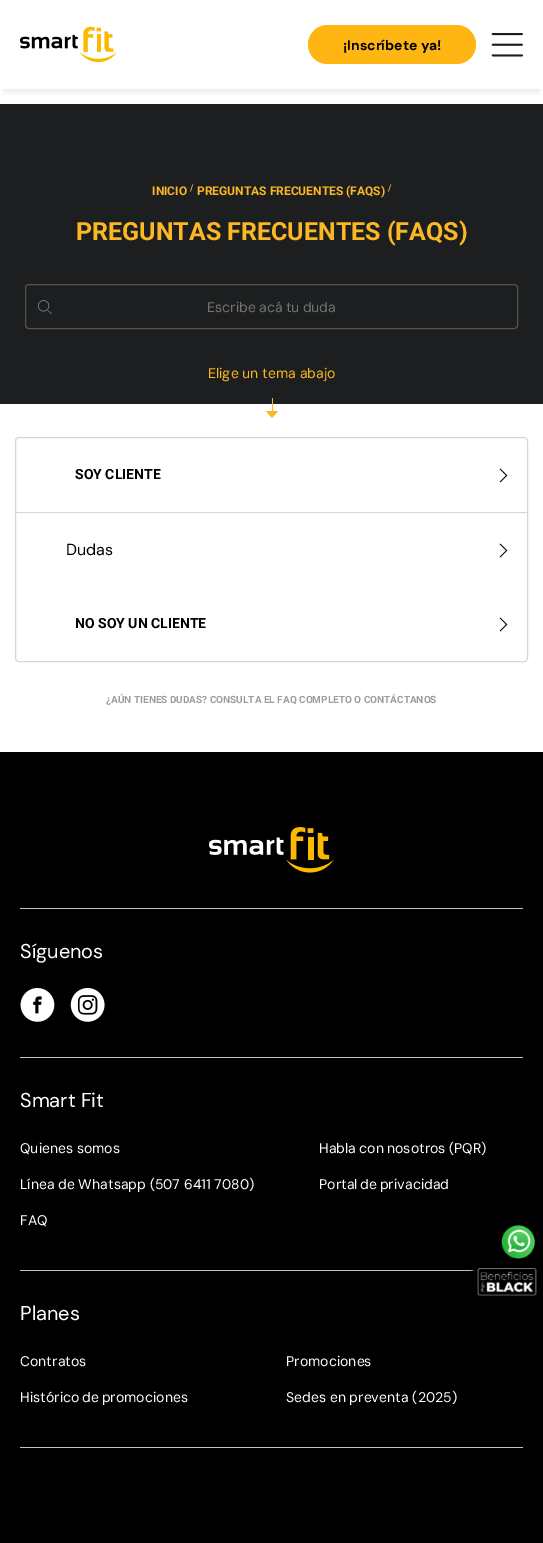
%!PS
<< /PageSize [543 1543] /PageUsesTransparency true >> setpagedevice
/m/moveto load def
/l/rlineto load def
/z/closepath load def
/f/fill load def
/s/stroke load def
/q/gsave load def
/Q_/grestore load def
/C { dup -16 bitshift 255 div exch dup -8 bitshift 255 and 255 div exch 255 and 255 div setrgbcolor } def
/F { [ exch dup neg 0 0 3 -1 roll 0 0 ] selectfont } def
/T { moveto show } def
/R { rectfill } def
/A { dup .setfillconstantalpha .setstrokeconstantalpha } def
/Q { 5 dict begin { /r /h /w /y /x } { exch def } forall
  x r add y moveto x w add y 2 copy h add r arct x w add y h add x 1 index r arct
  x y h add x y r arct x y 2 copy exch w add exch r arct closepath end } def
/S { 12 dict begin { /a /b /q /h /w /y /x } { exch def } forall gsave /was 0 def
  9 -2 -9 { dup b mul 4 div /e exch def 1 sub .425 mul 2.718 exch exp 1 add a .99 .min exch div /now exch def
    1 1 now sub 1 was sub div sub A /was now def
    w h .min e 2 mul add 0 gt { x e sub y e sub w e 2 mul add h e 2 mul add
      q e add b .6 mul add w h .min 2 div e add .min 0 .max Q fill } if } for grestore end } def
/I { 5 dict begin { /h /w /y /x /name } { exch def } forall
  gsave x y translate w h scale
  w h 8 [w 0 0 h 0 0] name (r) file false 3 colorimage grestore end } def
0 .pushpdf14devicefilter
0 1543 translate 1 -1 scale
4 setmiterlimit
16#FFFFFF C
0 0 543 1543 R
q
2 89 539 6 rectclip
16#000000 C
4 10 535 81 0 4.5 .1 S
Q_
(1.rgb) 20 26 97 37 I
16#FFB612 C
308 25 168 39 19.5 Q f
/DMSans-Bold 14 F
16#000000 C
(¡Inscríbete ya!) 343 50 T
(2.rgb) 491 33 32 24 I
16#1C1E20 C
0 104 543 300 R
/Roboto-Bold 12 F
16#FCB823 C
(INICIO) 152 195 T
/Roboto-Bold 9 F
(/) 190 191 T
/Roboto-Bold 12 F
(PREGUNTAS FRECUENTES \(FAQS\)) 197 195 T
/Roboto-Bold 9 F
(/) 388 191 T
/Roboto-Bold 25 F
(PREGUNTAS FRECUENTES \(FAQS\)) 76 240 T
16#535353 C
25.5 284.5 492 44 3.5 Q s
(3.rgb) 38 300 14 15 I
/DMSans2-Regular 14 F
16#757575 C
207 312 m -.5 0 32 (Escribe acá tu duda) widthshow
16#FCB823 C
(Elige un tema abajo) 208 378 T
272 418 m -6 -7 l 12 0 l -3 3.5 l z f
272 398 1 15 R
16#DCD0E0 C
15.5 437.5 512 224 3.5 Q s
/Roboto-Bold 14 F
16#000000 C
(SOY CLIENTE) 75 479 T
(4.rgb) 499 468 9 15 I
16#DCD0E0 C
16 512 511 1 R
/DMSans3-Regular 16 F
16#000000 C
(Dudas) 66 555 T
(4.rgb) 499 543 9 15 I
/Roboto-Bold 14 F
(NO SOY UN CLIENTE) 75 628 T
(4.rgb) 499 617 9 15 I
/Roboto-Bold 10 F
16#9A9C9E C
(¿AÚN TIENES DUDAS? CONSULTA EL FAQ COMPLETO O CONTÁCTANOS) 106 703 T
16#000000 C
0 752 543 791 R
16#C2C2C2 C
20 908 503 1 R
(5.rgb) 209 827 125 46 I
20 1057 503 1 R
/DMSans-Regular 20 F
16#FFFFFF C
(Síguenos) 20 958 T
(6.rgb) 20 988 35 34 I
(7.rgb) 70 988 35 34 I
16#C2C2C2 C
20 1447 503 1 R
20 1270 455 1 R
16#FFFFFF C
(Smart Fit) 20 1107 T
/DMSans2-Regular 14 F
(Quienes somos) 20 1153 T
319 1153 m -.5 0 32 (Habla con nosotros \(PQR\)) widthshow
(Línea de Whatsapp \(507 6411 7080\)) 20 1189 T
319 1189 m -1 0 32 (Portal de privacidad) widthshow
(FAQ) 20 1225 T
/DMSans-Regular 20 F
(Planes) 20 1320 T
/DMSans2-Regular 14 F
(Contratos) 20 1366 T
(Promociones) 286 1366 T
20 1402 m -1 0 32 (Histórico de promociones) widthshow
(Sedes en preventa \(2025\)) 286 1402 T
(8.rgb) 501 1225 34 34 I
(9.rgb) 470 1268 67 28 I
.poppdf14devicefilter showpage
